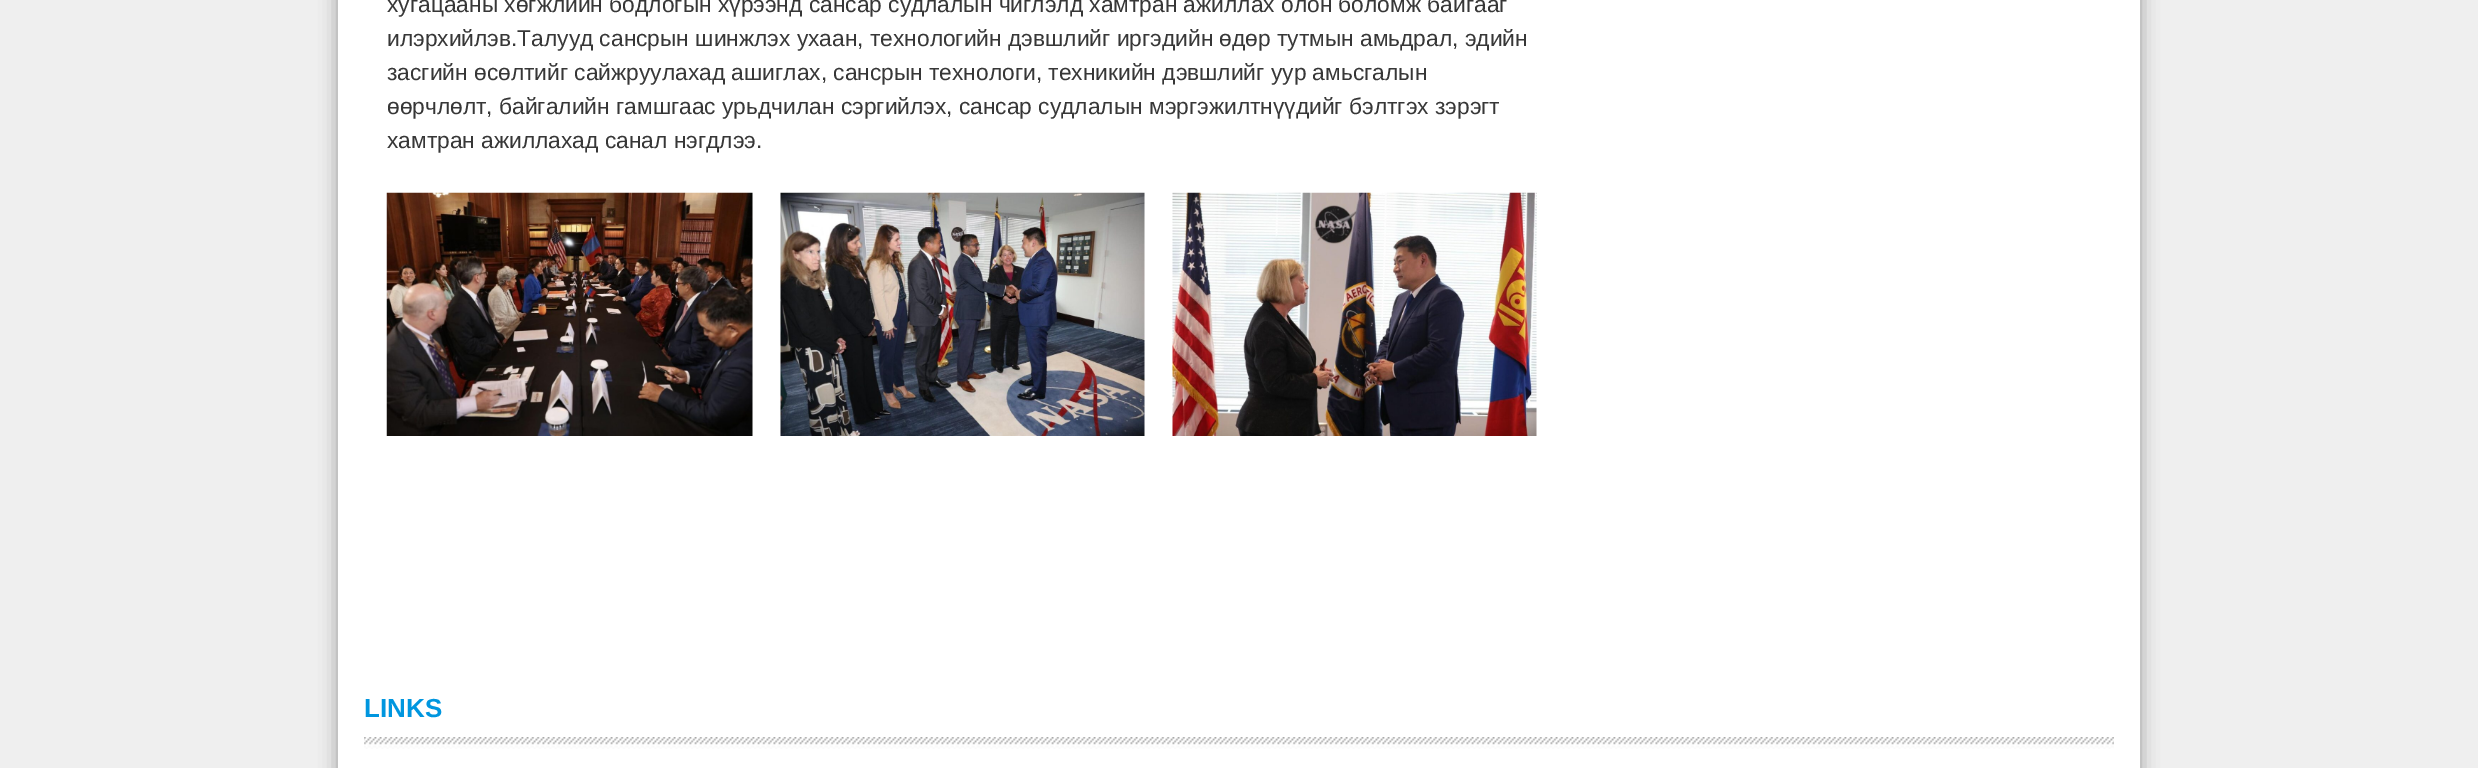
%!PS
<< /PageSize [2478 768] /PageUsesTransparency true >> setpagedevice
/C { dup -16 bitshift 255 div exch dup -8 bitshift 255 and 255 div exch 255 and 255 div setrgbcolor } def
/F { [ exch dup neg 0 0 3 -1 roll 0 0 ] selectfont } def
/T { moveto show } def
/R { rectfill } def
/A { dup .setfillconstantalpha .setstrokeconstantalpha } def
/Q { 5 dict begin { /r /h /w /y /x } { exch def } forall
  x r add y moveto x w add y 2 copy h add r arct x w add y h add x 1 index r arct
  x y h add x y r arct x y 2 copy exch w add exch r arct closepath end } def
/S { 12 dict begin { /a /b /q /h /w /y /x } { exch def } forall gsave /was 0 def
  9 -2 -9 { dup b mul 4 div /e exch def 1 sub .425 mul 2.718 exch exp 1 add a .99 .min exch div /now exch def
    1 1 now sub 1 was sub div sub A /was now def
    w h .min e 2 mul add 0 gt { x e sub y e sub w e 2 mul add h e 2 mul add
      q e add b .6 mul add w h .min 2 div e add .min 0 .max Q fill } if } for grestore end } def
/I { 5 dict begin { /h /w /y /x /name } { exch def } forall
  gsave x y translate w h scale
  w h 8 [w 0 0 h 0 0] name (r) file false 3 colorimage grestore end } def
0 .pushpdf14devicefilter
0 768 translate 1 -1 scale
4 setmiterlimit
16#EFEFEF C
0 0 2478 768 R
16#000000 C
338 -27 1802 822 0 9 .37 S
16#FFFFFF C
338 0 1802 768 R
/LiberationSans-Regular 22.75 F
16#373737 C
(хугацааны хөгжлийн бодлогын хүрээнд сансар судлалын чиглэлд хамтран ажиллах олон боломж байгааг) 387 12 T
(илэрхийлэв.Талууд сансрын шинжлэх ухаан, технологийн дэвшлийг иргэдийн өдөр тутмын амьдрал, эдийн) 387 46 T
(засгийн өсөлтийг сайжруулахад ашиглах, сансрын технологи, техникийн дэвшлийг уур амьсгалын) 387 80 T
(өөрчлөлт, байгалийн гамшгаас урьдчилан сэргийлэх, сансар судлалын мэргэжилтнүүдийг бэлтгэх зэрэгт) 387 114 T
(хамтран ажиллахад санал нэгдлээ.) 387 148 T
(1.rgb) 386 192 367 244 I
(2.rgb) 780 192 365 244 I
(3.rgb) 1172 192 365 244 I
(4.rgb) 364 737 1750 12 I
/LiberationSans-Bold 26 F
16#0096DF C
(LINKS) 364 717 T
.poppdf14devicefilter showpage
